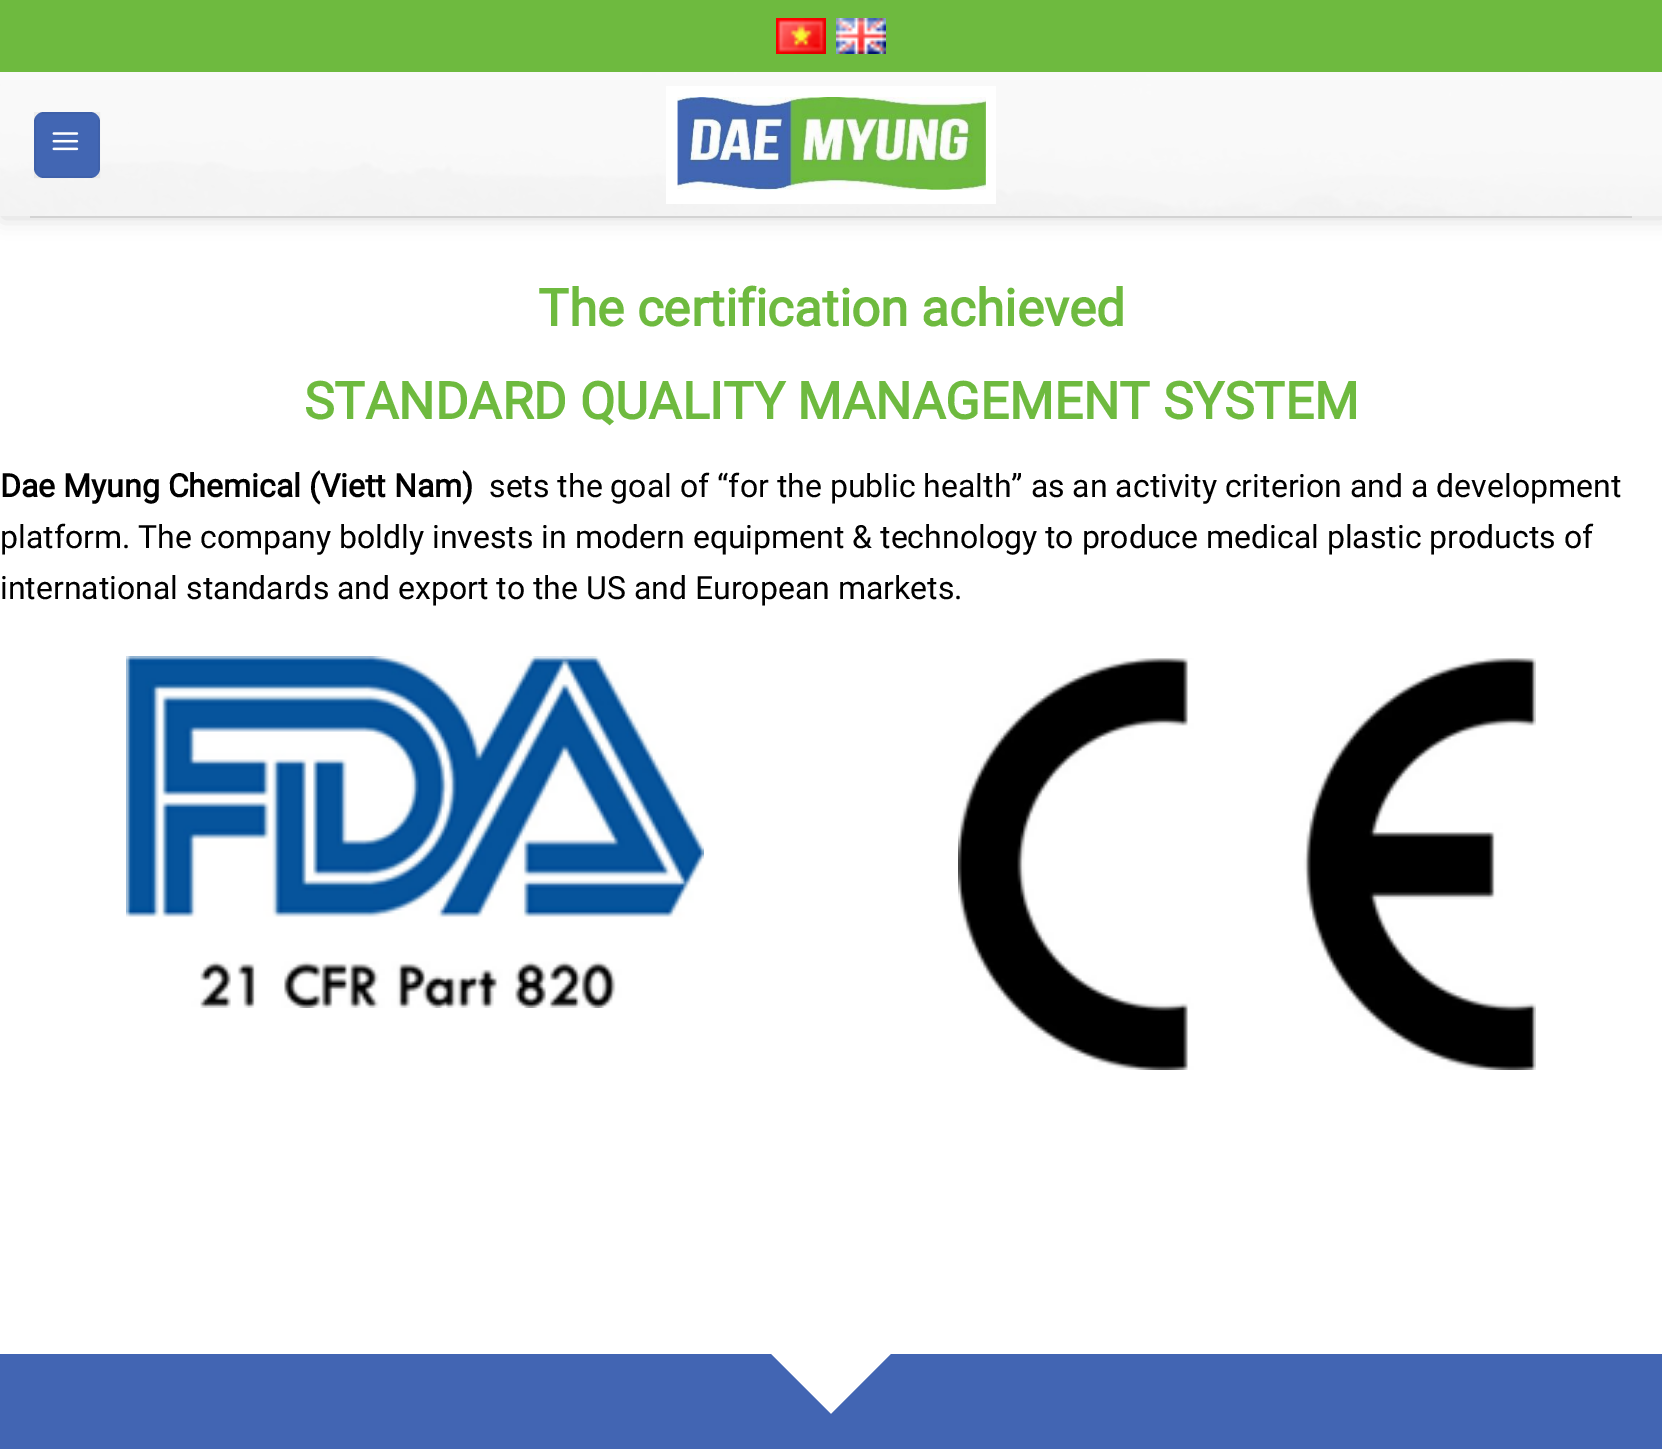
%!PS
<< /PageSize [1662 1449] /PageUsesTransparency true >> setpagedevice
/m/moveto load def
/l/rlineto load def
/z/closepath load def
/f/fill load def
/w/setlinewidth load def
/C { dup -16 bitshift 255 div exch dup -8 bitshift 255 and 255 div exch 255 and 255 div setrgbcolor } def
/F { [ exch dup neg 0 0 3 -1 roll 0 0 ] selectfont } def
/T { moveto show } def
/R { rectfill } def
/A { dup .setfillconstantalpha .setstrokeconstantalpha } def
/Q { 5 dict begin { /r /h /w /y /x } { exch def } forall
  x r add y moveto x w add y 2 copy h add r arct x w add y h add x 1 index r arct
  x y h add x y r arct x y 2 copy exch w add exch r arct closepath end } def
/S { 12 dict begin { /a /b /q /h /w /y /x } { exch def } forall gsave /was 0 def
  9 -2 -9 { dup b mul 4 div /e exch def 1 sub .425 mul 2.718 exch exp 1 add a .99 .min exch div /now exch def
    1 1 now sub 1 was sub div sub A /was now def
    w h .min e 2 mul add 0 gt { x e sub y e sub w e 2 mul add h e 2 mul add
      q e add b .6 mul add w h .min 2 div e add .min 0 .max Q fill } if } for grestore end } def
/I { 5 dict begin { /h /w /y /x /name } { exch def } forall
  gsave x y translate w h scale
  w h 8 [w 0 0 h 0 0] name (r) file false 3 colorimage grestore end } def
0 .pushpdf14devicefilter
0 1449 translate 1 -1 scale
4 setmiterlimit
16#FFFFFF C
0 0 1662 1449 R
16#000000 C
2 2 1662 216 0 10 .15 S
16#6EBA3F C
0 0 1662 72 R
(1.rgb) 776 18 50 36 I
(2.rgb) 836 18 50 36 I
(3.rgb) 0 72 1662 144 I
16#4266B3 C
34 112 66 66 10 Q f
0.05 A
16#000000 C
2 w
35 113 64 64 rectstroke
1 A
(4.rgb) 52 132 27 19 I
(5.rgb) 666 86 330 118 I
16#D3D3D3 C
30 216 1602 2 R
/Roboto-Bold 51.2 F
16#6EBA3F C
(The certification achieved) 538 326 T
(STANDARD QUALITY MANAGEMENT SYSTEM) 304 419 T
/Roboto-Bold 32 F
16#000000 C
(Dae Myung Chemical \(Viett Nam\)) 0 497 T
/Roboto-Regular 32 F
(sets the goal of “for the public health” as an activity criterion and a development) 489 497 T
(platform. The company boldly invests in modern equipment & technology to produce medical plastic products of) 0 548 T
(international standards and export to the US and European markets.) 0 599 T
(6.rgb) 126 656 578 352 I
(7.rgb) 958 658 578 412 I
16#4265B3 C
0 1354 m 0 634 l 1662 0 l 0 -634 l -771 0 l -60 60 l -60 -60 l z f
.poppdf14devicefilter showpage
